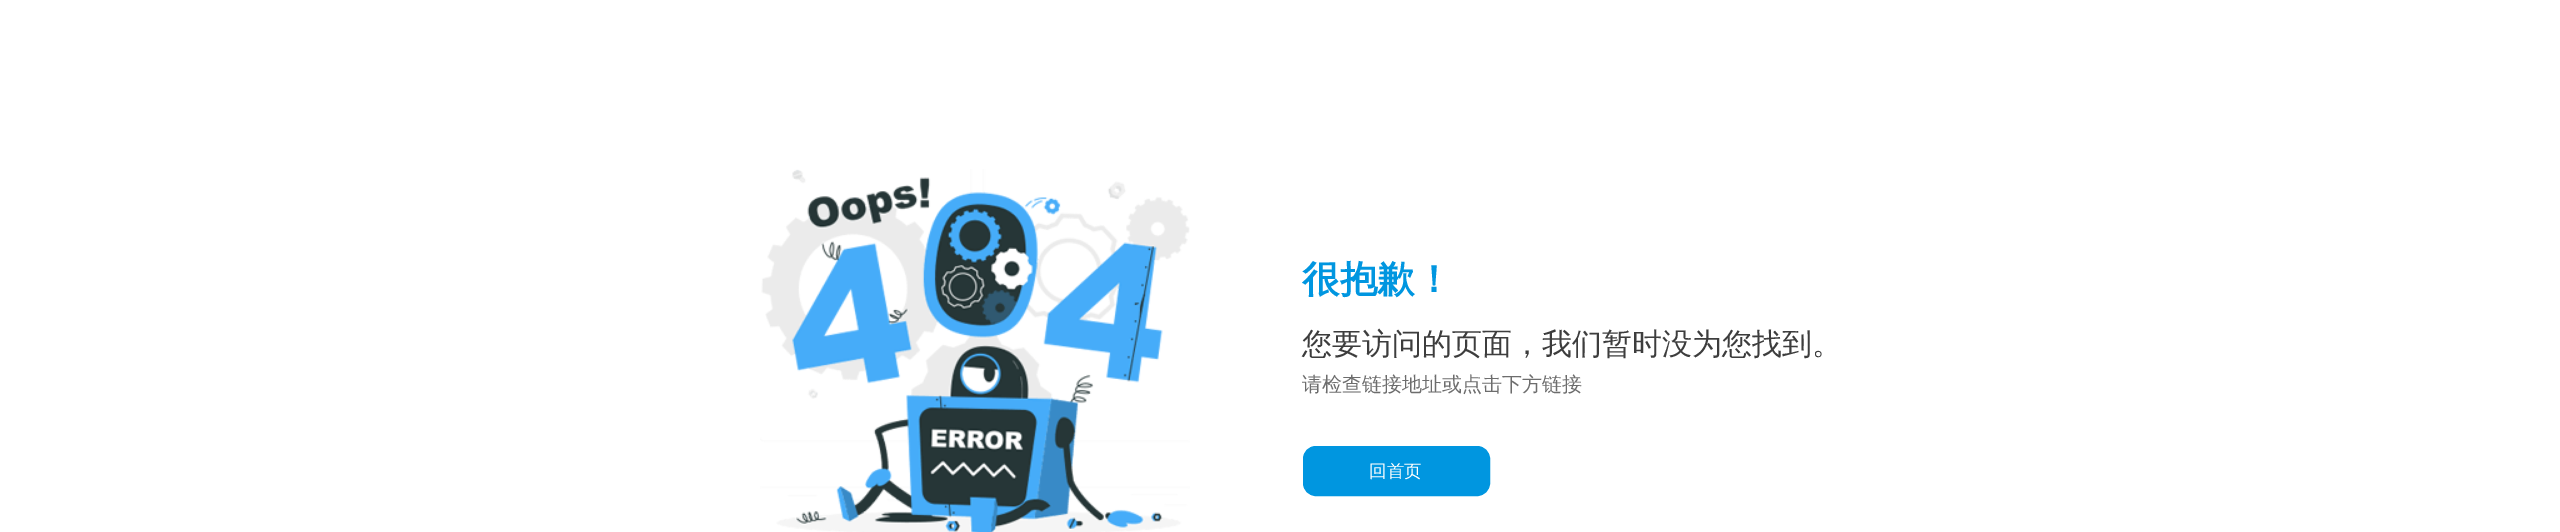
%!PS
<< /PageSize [2560 532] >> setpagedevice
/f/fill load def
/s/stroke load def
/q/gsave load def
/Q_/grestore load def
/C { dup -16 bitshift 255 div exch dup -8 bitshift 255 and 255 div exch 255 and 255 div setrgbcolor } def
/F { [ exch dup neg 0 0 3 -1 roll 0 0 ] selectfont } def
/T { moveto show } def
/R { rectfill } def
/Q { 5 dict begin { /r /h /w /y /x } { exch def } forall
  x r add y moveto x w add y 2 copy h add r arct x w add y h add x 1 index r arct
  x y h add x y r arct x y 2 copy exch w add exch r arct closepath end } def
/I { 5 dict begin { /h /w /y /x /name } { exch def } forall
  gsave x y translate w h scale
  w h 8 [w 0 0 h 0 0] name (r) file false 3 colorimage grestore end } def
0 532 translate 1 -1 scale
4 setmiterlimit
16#FFFFFF C
0 0 2560 532 R
(1.rgb) 760 169 430 363 I
/WenQuanYiZenHei-Bold 37.5 F
16#0096E0 C
(很抱歉！) 1302 292 T
/WenQuanYiZenHei-Medium 30 F
16#3D3D3D C
(您要访问的页面，我们暂时没为您找到。) 1302 354 T
/WenQuanYiZenHei-Medium 20 F
16#6D6D6D C
(请检查链接地址或点击下方链接) 1302 391 T
16#0096E0 C
1303.5 446.5 186 49 12.5 Q q f Q_
s
/WenQuanYiZenHei-Medium 17.5 F
16#FFFFFF C
(回首页) 1369 477 T
showpage
